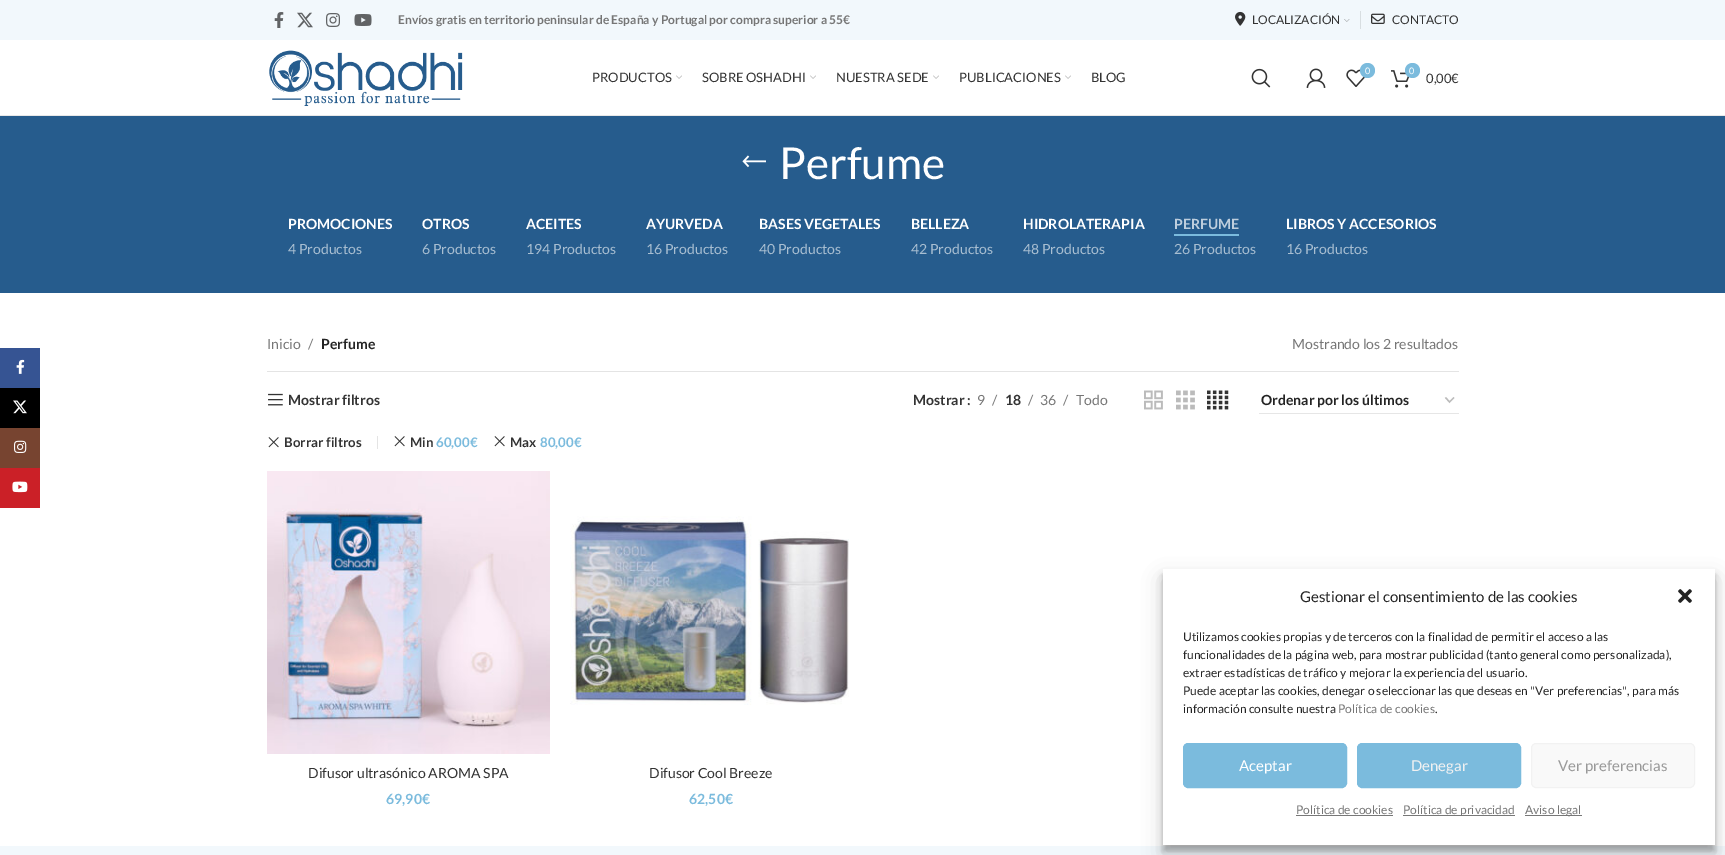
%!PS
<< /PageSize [1725 855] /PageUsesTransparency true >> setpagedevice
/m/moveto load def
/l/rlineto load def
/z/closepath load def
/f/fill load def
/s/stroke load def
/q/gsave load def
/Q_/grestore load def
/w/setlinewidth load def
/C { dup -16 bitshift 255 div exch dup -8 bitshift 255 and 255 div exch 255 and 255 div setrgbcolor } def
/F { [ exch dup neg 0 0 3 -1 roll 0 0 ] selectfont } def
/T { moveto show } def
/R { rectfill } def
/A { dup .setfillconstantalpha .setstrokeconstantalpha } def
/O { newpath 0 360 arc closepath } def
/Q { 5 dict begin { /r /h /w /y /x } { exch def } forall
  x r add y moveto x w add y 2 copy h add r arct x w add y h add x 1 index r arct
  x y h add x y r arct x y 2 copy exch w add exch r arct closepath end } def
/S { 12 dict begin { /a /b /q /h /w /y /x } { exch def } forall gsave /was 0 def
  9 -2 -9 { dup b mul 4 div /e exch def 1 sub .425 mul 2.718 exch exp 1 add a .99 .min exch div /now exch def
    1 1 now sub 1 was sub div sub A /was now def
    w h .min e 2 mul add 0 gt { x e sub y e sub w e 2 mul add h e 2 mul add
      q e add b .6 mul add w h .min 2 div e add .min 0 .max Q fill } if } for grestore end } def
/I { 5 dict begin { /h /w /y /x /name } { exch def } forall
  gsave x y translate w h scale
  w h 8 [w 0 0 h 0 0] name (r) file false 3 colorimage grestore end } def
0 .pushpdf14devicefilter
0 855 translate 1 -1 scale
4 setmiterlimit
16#FFFFFF C
0 0 1725 855 R
16#365493 C
0 348 40 40 R
(1.rgb) 16 359 9 15 I
16#000000 C
0 388 40 40 R
(2.rgb) 13 400 14 14 I
16#774430 C
0 428 40 40 R
(3.rgb) 14 440 13 13 I
16#CB2027 C
0 468 40 40 R
(4.rgb) 12 481 16 12 I
16#F2F8FC C
0 0 1725 40 R
(5.rgb) 274 12 10 16 I
(6.rgb) 297 12 16 16 I
(7.rgb) 326 13 14 14 I
(8.rgb) 354 14 18 12 I
/Lato-Bold 12 F
16#767676 C
(Envíos gratis en territorio peninsular de España y Portugal por compra superior a 55€) 398 24 T
(9.rgb) 1235 11 11 15 I
/Lato-Regular 12 F
16#333333 C
(LOCALIZACIÓN) 1252 24 T
(10.rgb) 1344 19 6 3 I
16#D8DEE1 C
1360 11 1 18 R
(11.rgb) 1371 13 14 11 I
16#333333 C
(CONTACTO) 1392 24 T
16#E8E8E8 C
0 115 1725 1 R
(12.rgb) 269 50 194 56 I
/Lato-Regular 13 F
16#333333 C
(PRODUCTOS) 592 82 T
(13.rgb) 676 75 6 4 I
(SOBRE OSHADHI) 702 82 T
(13.rgb) 810 75 6 4 I
(NUESTRA SEDE) 836 82 T
(13.rgb) 933 75 6 4 I
(PUBLICACIONES) 959 82 T
(13.rgb) 1065 75 6 4 I
(BLOG) 1091 82 T
(14.rgb) 1251 68 20 20 I
(15.rgb) 1306 68 20 20 I
(16.rgb) 1346 69 20 18 I
16#7BBBDD C
1367.5 70.5 7.5 O f
/Lato-Regular 9 F
16#FFFFFF C
(0) 1365 74 T
(17.rgb) 1391 70 19 18 I
16#7BBBDD C
1412.5 70.5 7.5 O f
16#FFFFFF C
(0) 1409 74 T
/Lato-Regular 13 F
16#333333 C
(0,00€) 1426 83 T
16#265C8D C
0 116 1725 177 R
(18.rgb) 742 155 24 13 I
/Lato-Regular 44 F
16#FFFFFF C
(Perfume) 779 179 T
/Lato-Bold 14 F
(PROMOCIONES) 288 229 T
/Lato-Regular 14 F
16#A8BED1 C
(4 Productos) 288 254 T
/Lato-Bold 14 F
16#FFFFFF C
(OTROS) 422 229 T
/Lato-Regular 14 F
16#A8BED1 C
(6 Productos) 422 254 T
/Lato-Bold 14 F
16#FFFFFF C
(ACEITES) 526 229 T
/Lato-Regular 14 F
16#A8BED1 C
(194 Productos) 526 254 T
/Lato-Bold 14 F
16#FFFFFF C
(AYURVEDA) 646 229 T
/Lato-Regular 14 F
16#A8BED1 C
(16 Productos) 646 254 T
/Lato-Bold 14 F
16#FFFFFF C
(BASES VEGETALES) 759 229 T
/Lato-Regular 14 F
16#A8BED1 C
(40 Productos) 759 254 T
/Lato-Bold 14 F
16#FFFFFF C
(BELLEZA) 911 229 T
/Lato-Regular 14 F
16#A8BED1 C
(42 Productos) 911 254 T
/Lato-Bold 14 F
16#FFFFFF C
(HIDROLATERAPIA) 1023 229 T
/Lato-Regular 14 F
16#A8BED1 C
(48 Productos) 1023 254 T
/Lato-Bold 14 F
16#BECEDD C
(PERFUME) 1174 229 T
16#7BBBDD C
1174 234 65 2 R
/Lato-Regular 14 F
16#A8BED1 C
(26 Productos) 1174 254 T
/Lato-Bold 14 F
16#FFFFFF C
(LIBROS Y ACCESORIOS) 1286 229 T
/Lato-Regular 14 F
16#A8BED1 C
(16 Productos) 1286 254 T
16#E4E4E4 C
267 371 1192 1 R
16#767676 C
(Inicio) 267 349 T
(/) 308 349 T
/Lato-Bold 14 F
16#242424 C
(Perfume) 321 349 T
/Lato-Regular 14 F
16#767676 C
(Mostrando los 2 resultados) 1292 349 T
(19.rgb) 268 393 15 13 I
/Lato-Bold 14 F
16#333333 C
(Mostrar filtros) 288 405 T
(Mostrar :) 913 405 T
/Lato-Regular 14 F
16#767676 C
(9) 977 405 T
(/) 992 405 T
/Lato-Bold 14 F
16#333333 C
(18) 1005 405 T
/Lato-Regular 14 F
16#767676 C
(/) 1028 405 T
(36) 1040 405 T
(/) 1063 405 T
(Todo) 1076 405 T
(20.rgb) 1144 390 19 20 I
(21.rgb) 1176 390 19 20 I
(22.rgb) 1207 390 22 20 I
16#BBBBBB C
1.4 w
1445.5 397.5 m 4 4.5 l 4.5 -4.5 l s
16#E6E6E6 C
1259 413 200 1 R
/Lato-Bold 14 F
16#242424 C
(Ordenar por los últimos) 1261 405 T
16#E4E4E4 C
377 436 1 13 R
(23.rgb) 268 437 11 11 I
/Lato-Bold 13.25 F
16#333333 C
(Borrar filtros) 284 447 T
(23.rgb) 394 436 11 11 I
(Min) 410 447 T
16#7BBBDD C
(60,00€) 436 447 T
(23.rgb) 494 436 11 11 I
16#333333 C
(Max) 510 447 T
16#7BBBDD C
(80,00€) 540 447 T
(24.rgb) 267 471 283 283 I
/Lato-Regular 14 F
16#333333 C
(Difusor ultrasónico AROMA SPA) 308 778 T
/Lato-Bold 14 F
16#7BBBDD C
(69,90€) 386 804 T
(25.rgb) 570 516 279 189 I
/Lato-Regular 14 F
16#333333 C
(Difusor Cool Breeze) 649 778 T
/Lato-Bold 14 F
16#7BBBDD C
(62,50€) 689 804 T
16#F2F8FC C
0 846 1725 9 R
q
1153 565 m 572 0 l 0 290 l -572 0 l z 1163 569 m 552 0 l 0 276 l -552 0 l z eoclip newpath
16#000000 C
1163 575 552 276 0 3 .23 S
Q_
q
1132 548 m 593 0 l 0 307 l -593 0 l z 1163 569 m 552 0 l 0 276 l -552 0 l z eoclip newpath
16#000000 C
1163 579 552 276 0 10 .19 S
Q_
/Lato-Regular 15 F
16#242424 C
(Gestionar el consentimiento de las cookies) 1300 602 T
(26.rgb) 1678 589 14 14 I
/Lato-Regular 12 F
(Utilizamos cookies propias y de terceros con la finalidad de permitir el acceso a las) 1183 641 T
(funcionalidades de la página web, para mostrar publicidad \(tanto general como personalizada\),) 1183 659 T
(extraer estadísticas de tráfico y mejorar la experiencia del usuario.) 1183 677 T
(Puede aceptar las cookies, denegar o seleccionar las que deseas en "Ver preferencias", para más) 1183 695 T
(información consulte nuestra) 1183 713 T
16#767676 C
(Política de cookies) 1338 713 T
16#242424 C
(.) 1435 713 T
16#7BBBDD C
1183.5 743.5 163 44 4.5 Q q f Q_
1 w
s
/Lato-Regular 15 F
16#FFFFFF C
(Aceptar) 1239 771 T
16#7BBBDD C
1357.5 743.5 163 44 4.5 Q q f Q_
s
16#F1F1F1 C
(Denegar) 1411 771 T
16#F9F9F9 C
1531.5 743.5 163 44 4.5 Q q f Q_
16#F2F2F2 C
s
16#999999 C
(Ver preferencias) 1558 771 T
/Lato-Regular 12 F
16#767676 C
(Política de cookies) 1296 814 T
16#777777 C
1296 815 97 1 R
1403 815 112 1 R
16#767676 C
(Política de privacidad) 1403 814 T
16#777777 C
1525 815 57 1 R
16#767676 C
(Aviso legal) 1525 814 T
.poppdf14devicefilter showpage
